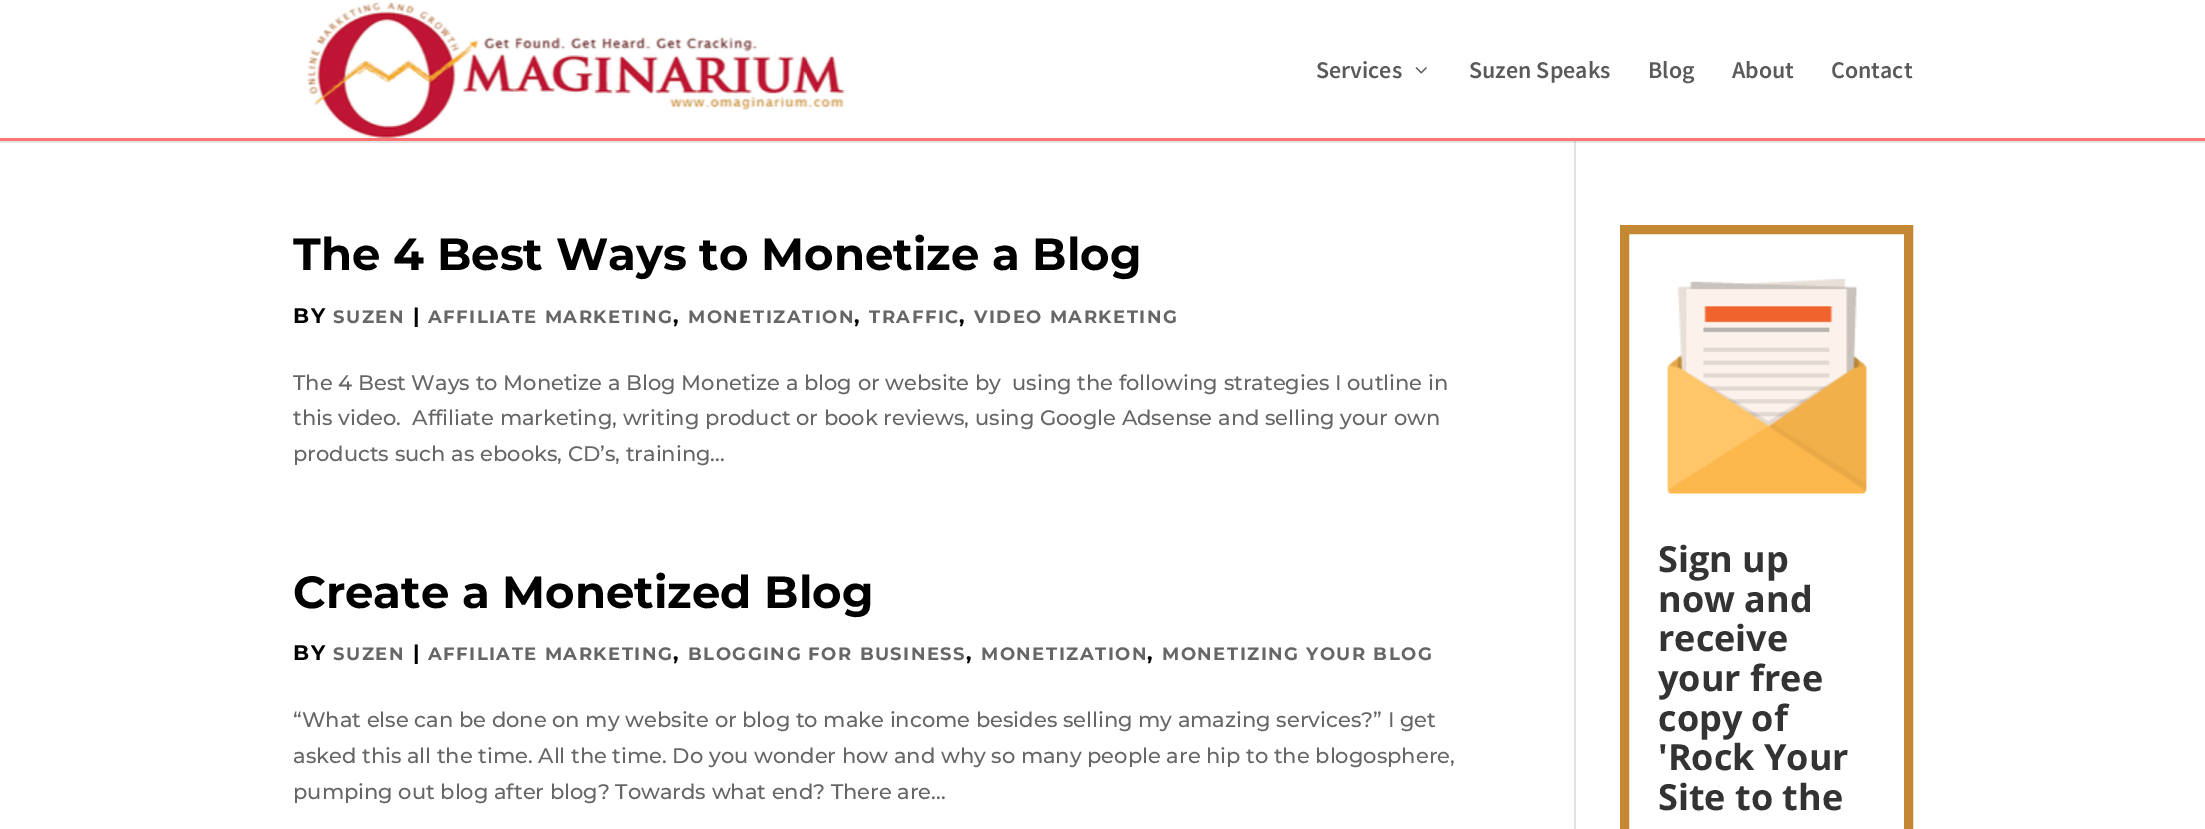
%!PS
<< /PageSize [2205 829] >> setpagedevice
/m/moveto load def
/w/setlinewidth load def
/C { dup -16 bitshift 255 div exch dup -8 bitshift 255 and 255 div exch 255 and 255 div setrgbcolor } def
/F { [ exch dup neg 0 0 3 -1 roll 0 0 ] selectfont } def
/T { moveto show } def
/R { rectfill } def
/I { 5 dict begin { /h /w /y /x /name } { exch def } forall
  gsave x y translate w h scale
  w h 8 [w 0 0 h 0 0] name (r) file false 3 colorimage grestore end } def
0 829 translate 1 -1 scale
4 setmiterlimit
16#FFFFFF C
0 0 2205 829 R
16#E6E6E6 C
0 141 2205 2 R
16#E2E2E2 C
1574 138 2 691 R
16#FE7573 C
0 138 2205 3 R
(1.rgb) 306 0 539 138 I
/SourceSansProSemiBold-SemiBold 24 F
16#5A5A5A C
(Services) 1316 78 T
(2.rgb) 1415 67 12 7 I
(Suzen Speaks) 1469 78 T
(Blog) 1648 78 T
(About) 1732 78 T
(Contact) 1831 78 T
16#CBCBCB C
1574 141 2 2 R
/Montserrat-Bold 45 F
16#000000 C
(The 4 Best Ways to Monetize a Blog) 293 270 T
/Montserrat-Bold 21 F
293 323 m 1.5 0 (BY) ashow
/Montserrat-Bold 18 F
16#666666 C
333 323 m 1.5 0 (SUZEN) ashow
/Montserrat-Bold 21 F
16#000000 C
413 323 m 1.5 0 (|) ashow
/Montserrat-Bold 18 F
16#666666 C
428 323 m 1.5 0 (AFFILIATE MARKETING) ashow
/Montserrat-Bold 21 F
16#000000 C
673 323 m 1.5 0 (,) ashow
/Montserrat-Bold 18 F
16#666666 C
688 323 m 1.5 0 (MONETIZATION) ashow
/Montserrat-Bold 21 F
16#000000 C
854 323 m 1.5 0 (,) ashow
/Montserrat-Bold 18 F
16#666666 C
869 323 m 1.5 0 (TRAFFIC) ashow
/Montserrat-Bold 21 F
16#000000 C
959 323 m 1.5 0 (,) ashow
/Montserrat-Bold 18 F
16#666666 C
974 323 m 1.5 0 (VIDEO MARKETING) ashow
/Montserrat-Medium 21 F
(The 4 Best Ways to Monetize a Blog Monetize a blog or website by  using the following strategies I outline in) 293 390 T
(this video.  Affiliate marketing, writing product or book reviews, using Google Adsense and selling your own) 293 425 T
(products such as ebooks, CD’s, training...) 293 461 T
/Montserrat-Bold 45 F
16#000000 C
(Create a Monetized Blog) 293 608 T
/Montserrat-Bold 21 F
293 660 m 1.5 0 (BY) ashow
/Montserrat-Bold 18 F
16#666666 C
333 660 m 1.5 0 (SUZEN) ashow
/Montserrat-Bold 21 F
16#000000 C
413 660 m 1.5 0 (|) ashow
/Montserrat-Bold 18 F
16#666666 C
428 660 m 1.5 0 (AFFILIATE MARKETING) ashow
/Montserrat-Bold 21 F
16#000000 C
673 660 m 1.5 0 (,) ashow
/Montserrat-Bold 18 F
16#666666 C
688 660 m 1.5 0 (BLOGGING FOR BUSINESS) ashow
/Montserrat-Bold 21 F
16#000000 C
966 660 m 1.5 0 (,) ashow
/Montserrat-Bold 18 F
16#666666 C
981 660 m 1.5 0 (MONETIZATION) ashow
/Montserrat-Bold 21 F
16#000000 C
1147 660 m 1.5 0 (,) ashow
/Montserrat-Bold 18 F
16#666666 C
1162 660 m 1.5 0 (MONETIZING YOUR BLOG) ashow
/Montserrat-Medium 21 F
(“What else can be done on my website or blog to make income besides selling my amazing services?” I get) 293 727 T
(asked this all the time. All the time. Do you wonder how and why so many people are hip to the blogosphere,) 293 763 T
(pumping out blog after blog? Towards what end? There are...) 293 799 T
16#C48732 C
9 w
1624.5 229.5 284 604 rectstroke
(3.rgb) 1667 279 200 215 I
/OpenSans-Bold 36 F
16#333333 C
(Sign up) 1658 572 T
(now and) 1658 612 T
(receive) 1658 651 T
(your free) 1658 691 T
(copy of) 1658 731 T
('Rock Your) 1658 770 T
(Site to the) 1658 810 T
showpage
